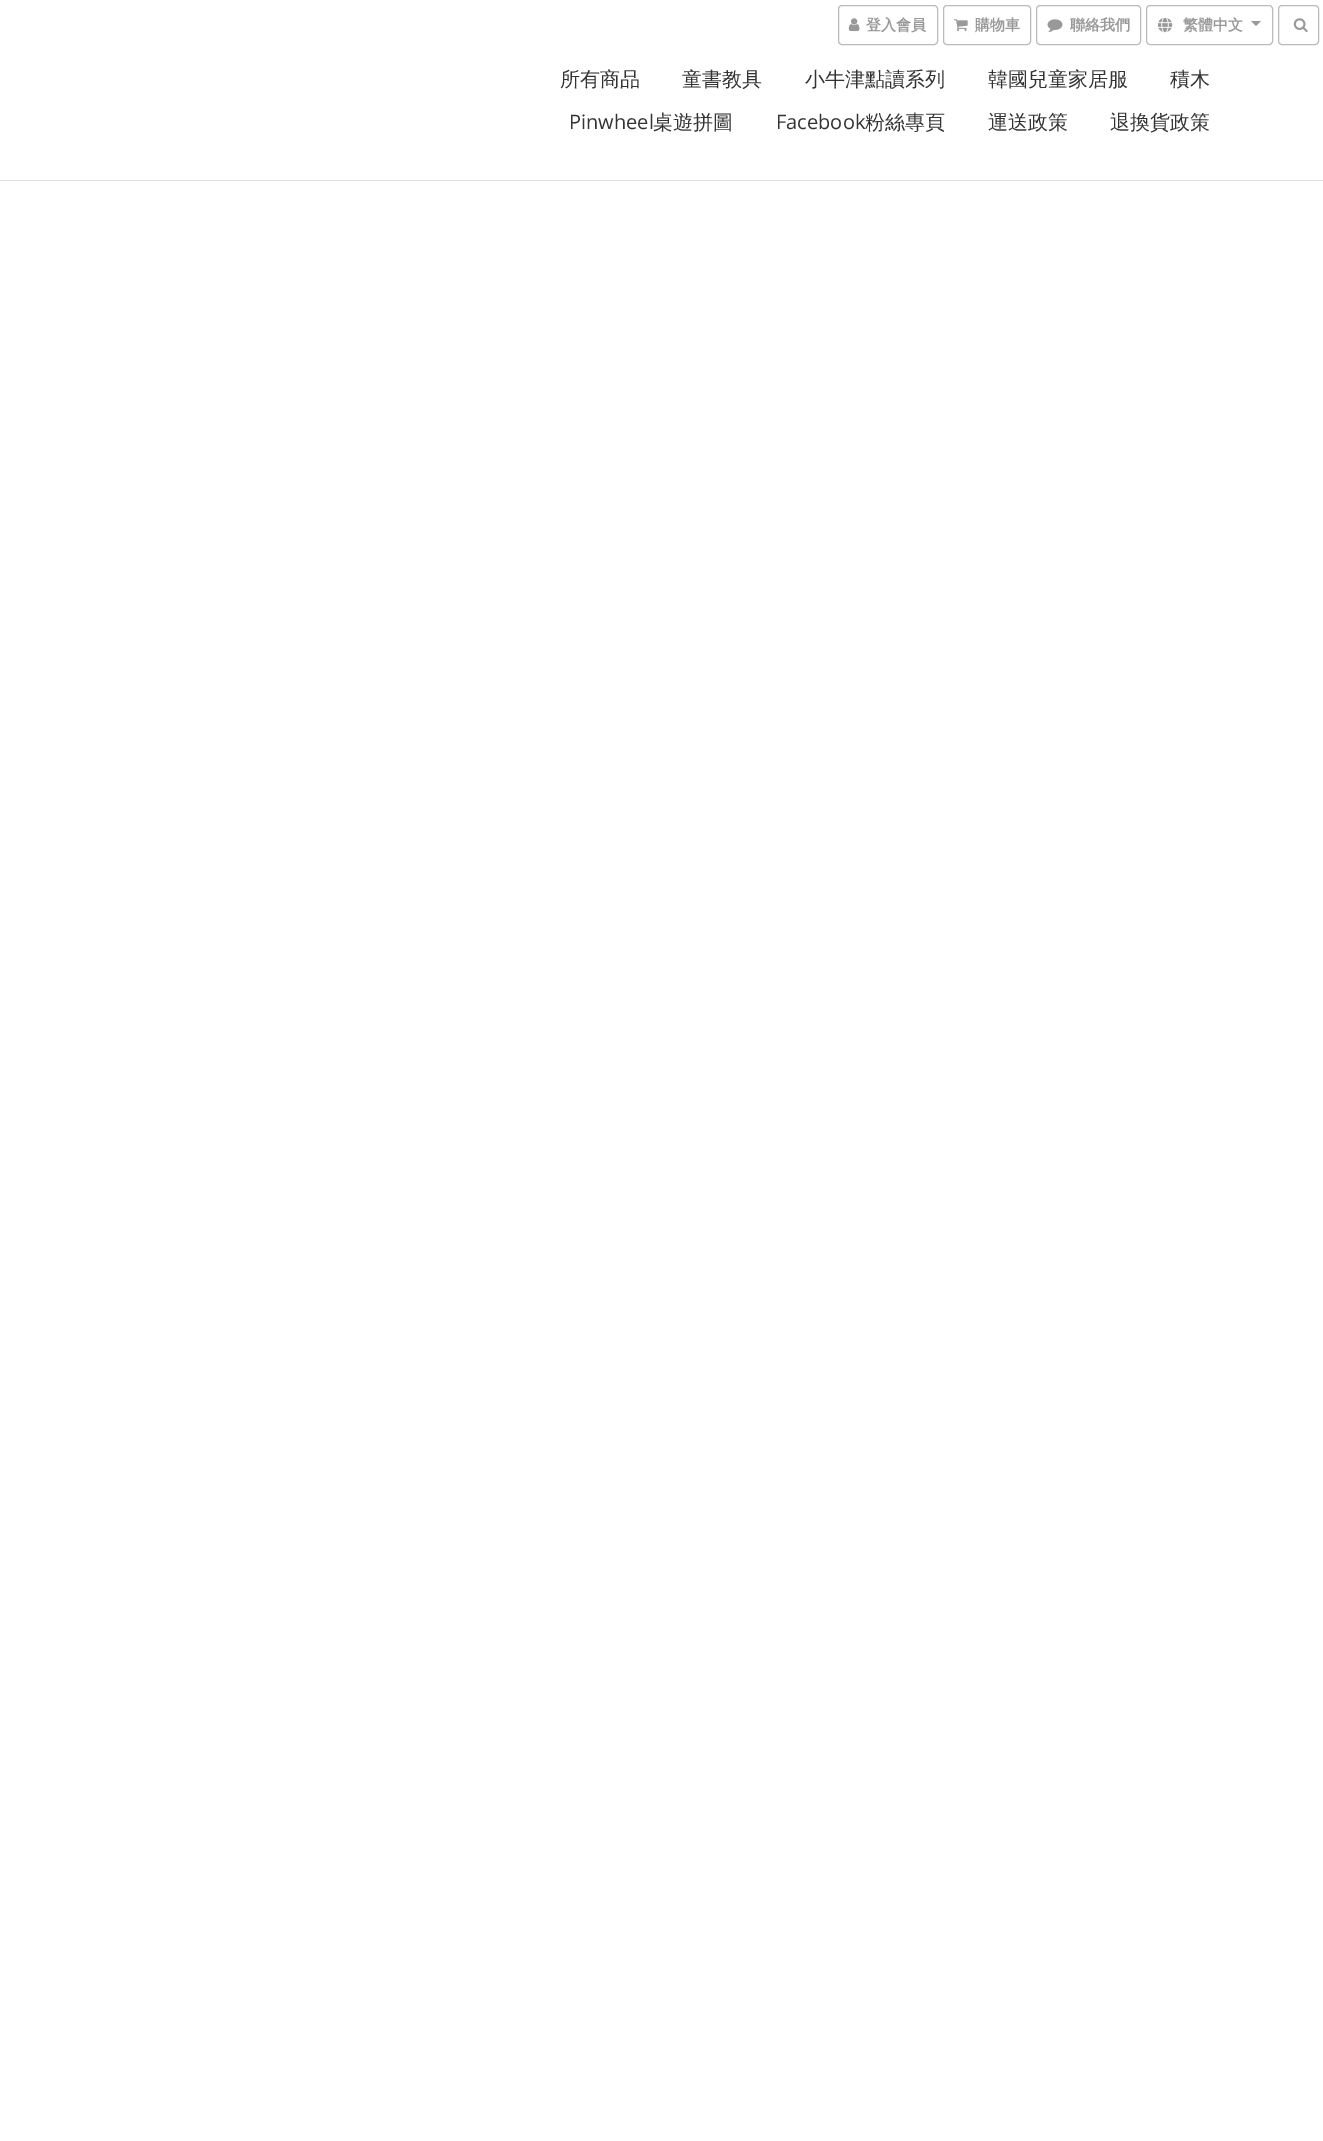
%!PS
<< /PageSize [1323 2141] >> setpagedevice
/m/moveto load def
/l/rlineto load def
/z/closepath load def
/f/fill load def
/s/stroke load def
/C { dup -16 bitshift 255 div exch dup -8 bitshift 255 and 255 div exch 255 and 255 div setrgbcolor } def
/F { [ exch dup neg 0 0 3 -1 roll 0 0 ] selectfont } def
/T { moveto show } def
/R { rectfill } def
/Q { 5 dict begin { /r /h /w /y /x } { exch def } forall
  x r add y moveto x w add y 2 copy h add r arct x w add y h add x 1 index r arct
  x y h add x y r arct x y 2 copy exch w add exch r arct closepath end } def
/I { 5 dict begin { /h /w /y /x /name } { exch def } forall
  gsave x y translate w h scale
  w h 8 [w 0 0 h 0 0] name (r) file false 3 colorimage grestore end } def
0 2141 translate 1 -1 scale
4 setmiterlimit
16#FFFFFF C
0 0 1323 2141 R
16#BBBBBB C
838.5 5.5 99 39 3.5 Q s
(1.rgb) 848 18 12 14 I
/WenQuanYiZenHei-Bold 15 F
16#999999 C
(登入會員) 866 30 T
16#BBBBBB C
943.5 5.5 87 39 3.5 Q s
(2.rgb) 953 19 15 12 I
16#999999 C
(購物車) 975 30 T
16#BBBBBB C
1036.5 5.5 104 39 3.5 Q s
(3.rgb) 1047 19 16 13 I
16#999999 C
(聯絡我們) 1070 30 T
16#BBBBBB C
1146.5 5.5 126 39 3.5 Q s
(4.rgb) 1158 18 15 15 I
16#999999 C
(繁體中文) 1183 30 T
1251 21 m 10 0 l -5 5 l z f
16#BBBBBB C
1278.5 5.5 40 39 3.5 Q s
(5.rgb) 1293 18 15 15 I
16#E0E0E0 C
0 180 1323 1 R
/WenQuanYiZenHei-Medium 20 F
16#333333 C
(所有商品) 560 86 T
(童書教具) 682 86 T
(小牛津點讀系列) 805 86 T
(韓國兒童家居服) 988 86 T
(積木) 1170 86 T
/OpenSans-Regular 20 F
(Pinwheel) 569 129 T
/WenQuanYiZenHei-Medium 20 F
(桌遊拼圖) 653 129 T
/OpenSans-Regular 20 F
(Facebook) 776 129 T
/WenQuanYiZenHei-Medium 20 F
(粉絲專頁) 865 129 T
(運送政策) 988 129 T
(退換貨政策) 1110 129 T
showpage
